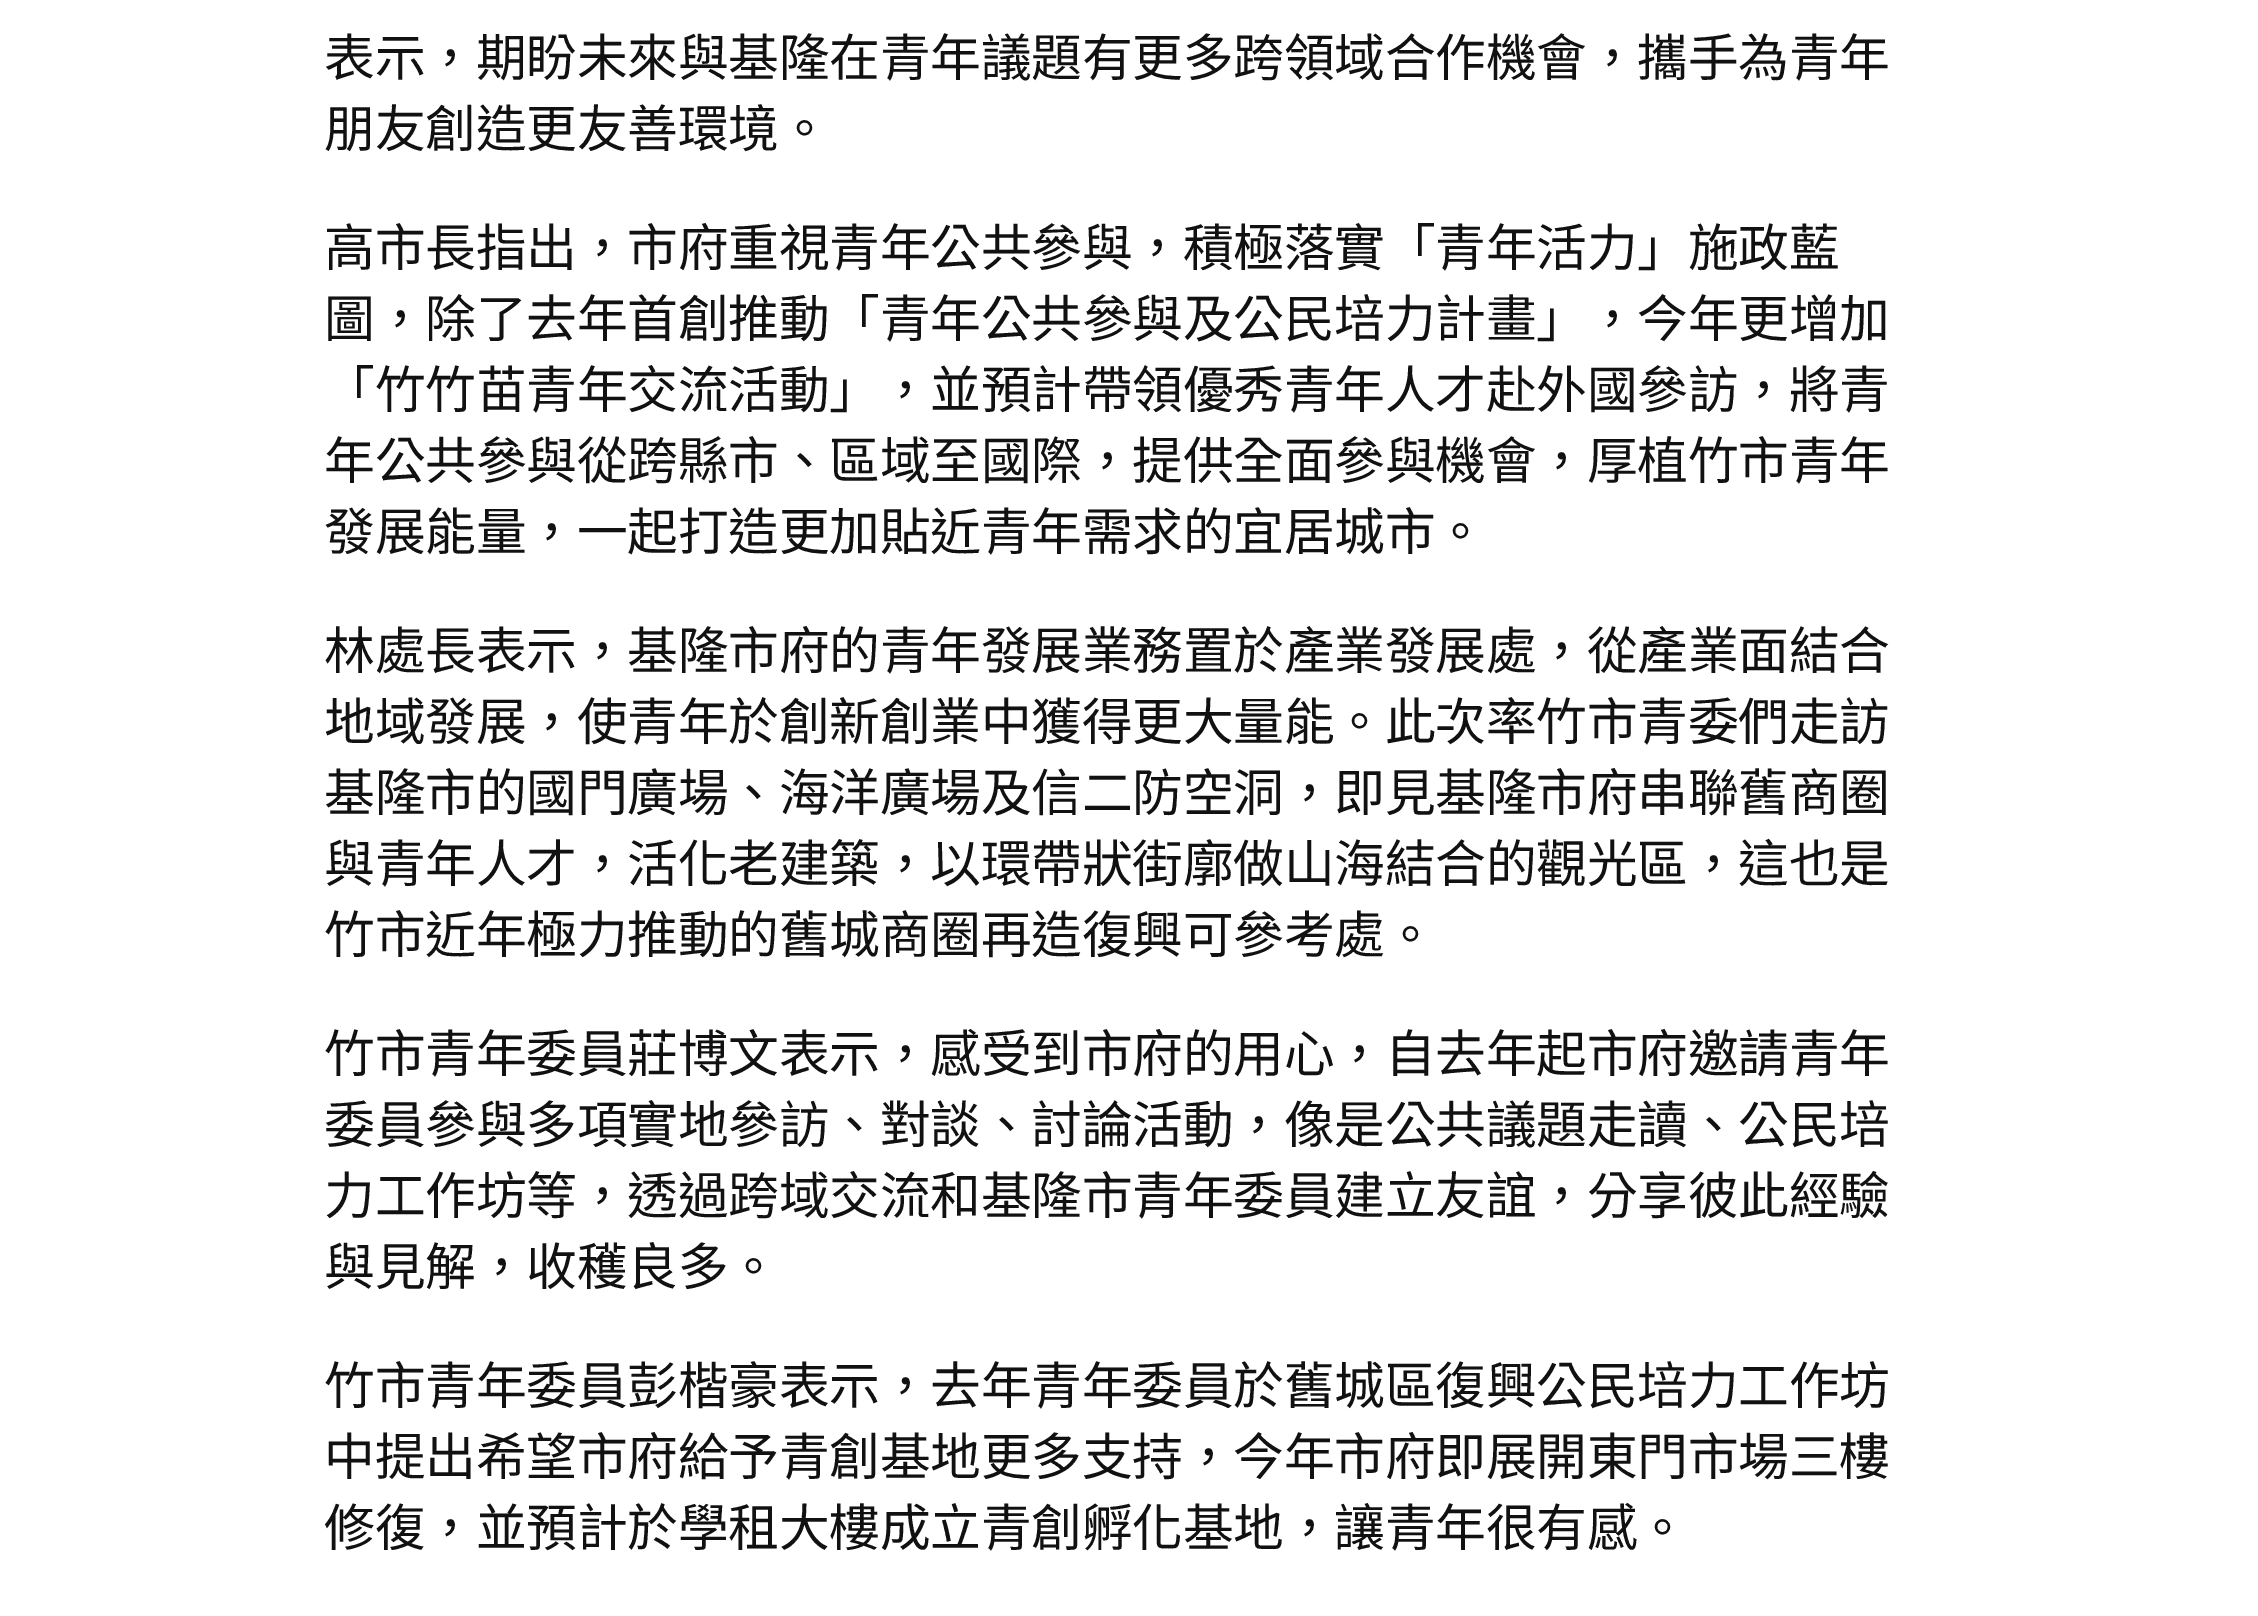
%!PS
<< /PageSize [2258 1616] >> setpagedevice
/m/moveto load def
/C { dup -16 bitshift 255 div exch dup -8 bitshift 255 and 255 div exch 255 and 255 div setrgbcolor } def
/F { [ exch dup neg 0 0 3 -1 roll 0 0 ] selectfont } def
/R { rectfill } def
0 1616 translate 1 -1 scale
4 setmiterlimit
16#FFFFFF C
0 0 2258 1616 R
/NotoSansCJKTC-Regular 50.75 F
16#111111 C
324 76 m -.25 0 (表示，期盼未來與基隆在青年議題有更多跨領域合作機會，攜手為青年) ashow
324 147 m -.25 0 (朋友創造更友善環境。) ashow
324 266 m -.25 0 (高市長指出，市府重視青年公共參與，積極落實「青年活力」施政藍) ashow
324 337 m -.25 0 (圖，除了去年首創推動「青年公共參與及公民培力計畫」，今年更增加) ashow
324 408 m -.25 0 (「竹竹苗青年交流活動」，並預計帶領優秀青年人才赴外國參訪，將青) ashow
324 479 m -.25 0 (年公共參與從跨縣市、區域至國際，提供全面參與機會，厚植竹市青年) ashow
324 550 m -.25 0 (發展能量，一起打造更加貼近青年需求的宜居城市。) ashow
324 669 m -.25 0 (林處長表示，基隆市府的青年發展業務置於產業發展處，從產業面結合) ashow
324 740 m -.25 0 (地域發展，使青年於創新創業中獲得更大量能。此次率竹市青委們走訪) ashow
324 811 m -.25 0 (基隆市的國門廣場、海洋廣場及信二防空洞，即見基隆市府串聯舊商圈) ashow
324 882 m -.25 0 (與青年人才，活化老建築，以環帶狀街廓做山海結合的觀光區，這也是) ashow
324 953 m -.25 0 (竹市近年極力推動的舊城商圈再造復興可參考處。) ashow
324 1072 m -.25 0 (竹市青年委員莊博文表示，感受到市府的用心，自去年起市府邀請青年) ashow
324 1143 m -.25 0 (委員參與多項實地參訪、對談、討論活動，像是公共議題走讀、公民培) ashow
324 1214 m -.25 0 (力工作坊等，透過跨域交流和基隆市青年委員建立友誼，分享彼此經驗) ashow
324 1285 m -.25 0 (與見解，收穫良多。) ashow
324 1404 m -.25 0 (竹市青年委員彭楷豪表示，去年青年委員於舊城區復興公民培力工作坊) ashow
324 1475 m -.25 0 (中提出希望市府給予青創基地更多支持，今年市府即展開東門市場三樓) ashow
324 1546 m -.25 0 (修復，並預計於學租大樓成立青創孵化基地，讓青年很有感。) ashow
showpage
